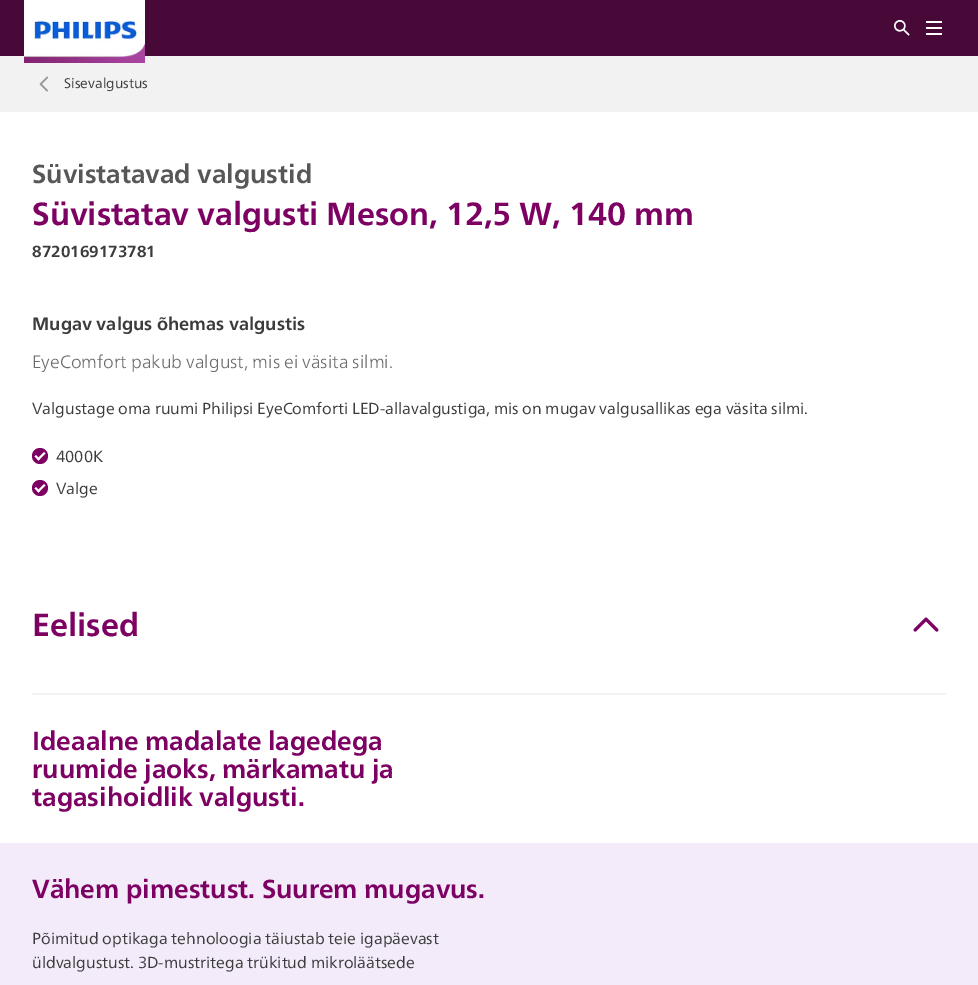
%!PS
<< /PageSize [978 985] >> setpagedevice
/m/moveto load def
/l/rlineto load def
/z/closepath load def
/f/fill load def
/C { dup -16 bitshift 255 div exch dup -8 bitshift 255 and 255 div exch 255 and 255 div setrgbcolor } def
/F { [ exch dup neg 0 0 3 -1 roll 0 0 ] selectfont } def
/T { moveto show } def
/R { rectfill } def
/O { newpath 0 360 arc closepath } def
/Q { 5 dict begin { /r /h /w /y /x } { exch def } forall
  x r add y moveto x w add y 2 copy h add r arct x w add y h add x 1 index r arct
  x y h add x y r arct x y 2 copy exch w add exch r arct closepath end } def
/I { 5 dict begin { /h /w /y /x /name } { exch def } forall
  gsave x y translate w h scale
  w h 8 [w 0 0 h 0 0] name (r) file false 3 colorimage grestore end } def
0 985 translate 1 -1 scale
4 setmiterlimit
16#FFFFFF C
0 0 978 985 R
16#480938 C
0 0 978 56 R
16#F2F2F2 C
0 56 978 56 R
(1.rgb) 24 0 121 63 I
(2.rgb) 894 20 16 16 I
16#FFFFFF C
926 21 16 2 1 Q f
926 27 16 2 1 Q f
926 33 16 2 1 Q f
(3.rgb) 39 76 9 16 I
/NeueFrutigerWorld-Regular 14 F
16#3C3C3C C
(Sisevalgustus) 64 88 T
/NeueFrutigerWorld-Bold 26 F
16#575757 C
(Süvistatavad valgustid) 32 183 T
/NeueFrutigerWorld-Bold 32 F
16#7D0063 C
(Süvistatav valgusti Meson, 12,5 W, 140 mm) 32 225 T
/NeueFrutigerWorld-Bold 16 F
16#3C3C3C C
(8720169173781) 32 257 T
/NeueFrutigerWorld-Bold 18 F
(Mugav valgus õhemas valgustis) 32 330 T
/NeueFrutigerWorld-Light 18 F
16#6D6D6D C
(EyeComfort pakub valgust, mis ei väsita silmi.) 32 368 T
/NeueFrutigerWorld-Regular 16 F
16#3C3C3C C
(Valgustage oma ruumi Philipsi EyeComforti LED-allavalgustiga, mis on mugav valgusallikas ega väsita silmi.) 32 414 T
16#7D0063 C
40 456 8 O f
16#3C3C3C C
(4000K) 56 462 T
16#FFFFFF C
44 452 m 1.5 1.5 l -7 7 l -1.5 -1.5 l z f
36 455 m 4 4 l -1.5 1.5 l -4 -4 l z f
16#7D0063 C
40 488 8 O f
16#3C3C3C C
(Valge) 56 494 T
16#FFFFFF C
44 484 m 1.5 1.5 l -7 7 l -1.5 -1.5 l z f
36 487 m 4 4 l -1.5 1.5 l -4 -4 l z f
16#F2F2F2 C
32 693 914 2 R
/NeueFrutigerWorld-Bold 32 F
16#7D0063 C
(Eelised) 32 636 T
(4.rgb) 913 617 26 15 I
/NeueFrutigerWorld-Bold 26 F
(Ideaalne madalate lagedega) 32 750 T
(ruumide jaoks, märkamatu ja) 32 778 T
(tagasihoidlik valgusti.) 32 806 T
16#F3EBFA C
0 843 978 142 R
16#7D0063 C
(Vähem pimestust. Suurem mugavus.) 32 898 T
/NeueFrutigerWorld-Regular 16 F
16#3C3C3C C
(Põimitud optikaga tehnoloogia täiustab teie igapäevast) 32 944 T
(üldvalgustust. 3D-mustritega trükitud mikroläätsede) 32 968 T
showpage
